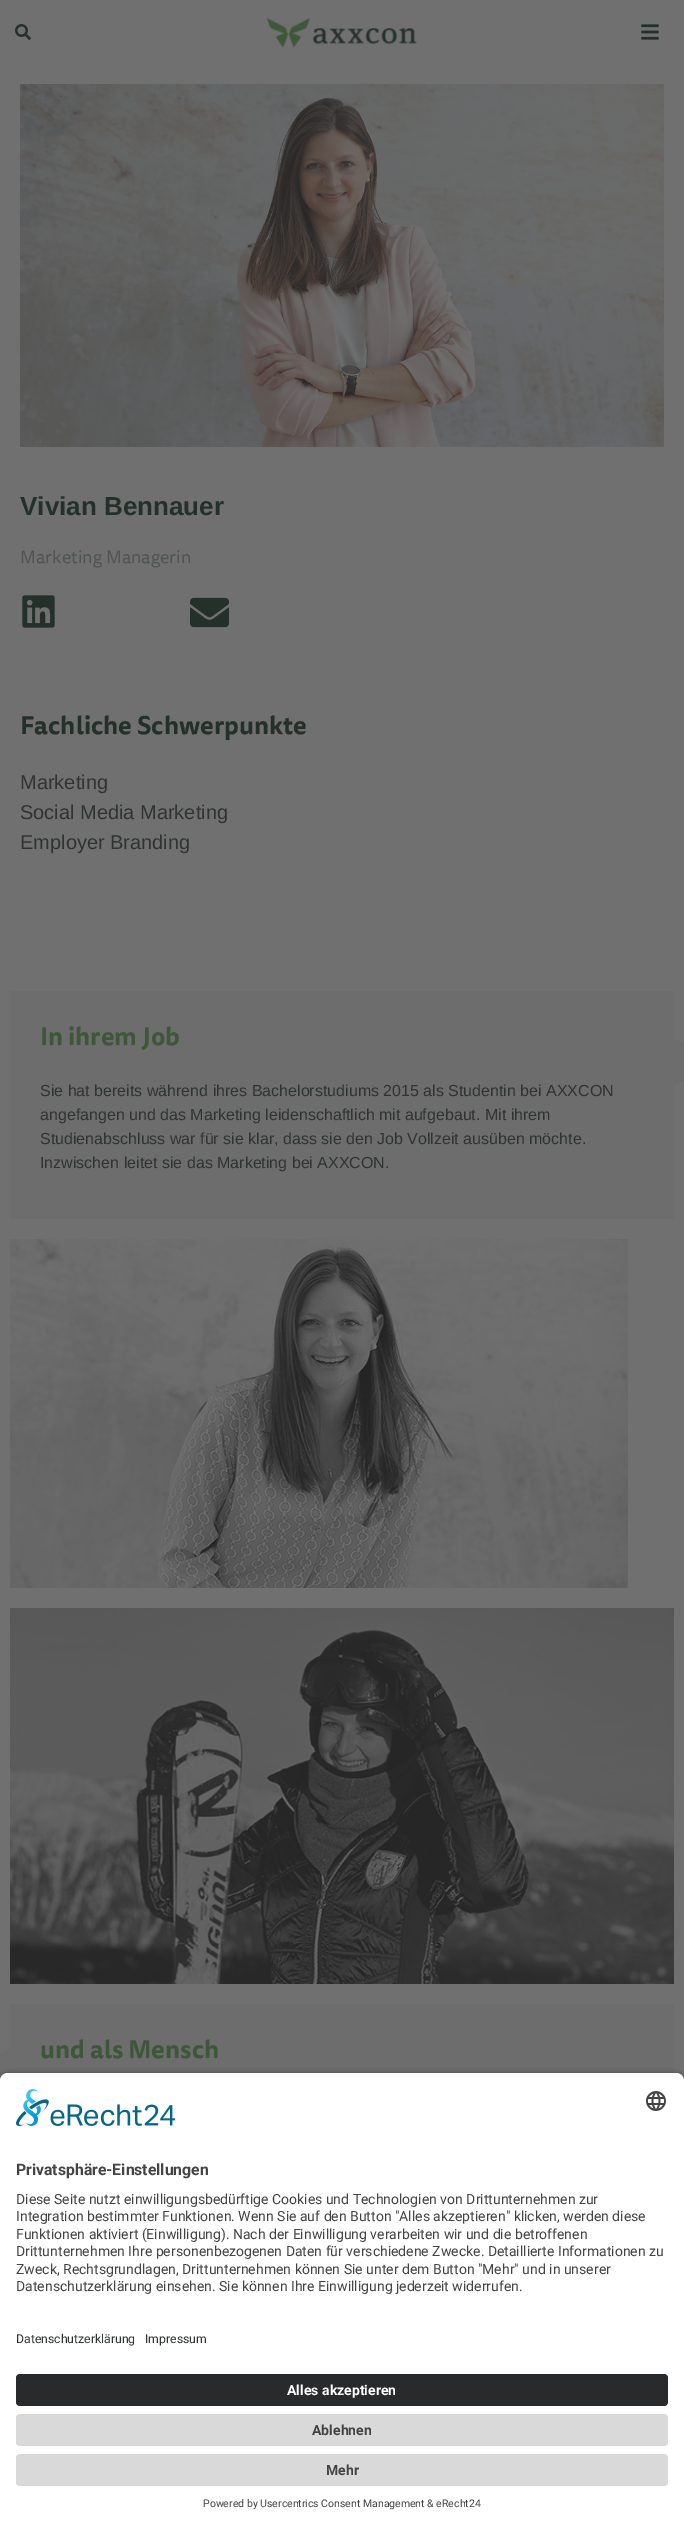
%!PS
<< /PageSize [684 2526] /PageUsesTransparency true >> setpagedevice
/m/moveto load def
/l/rlineto load def
/c/rcurveto load def
/z/closepath load def
/f/fill load def
/C { dup -16 bitshift 255 div exch dup -8 bitshift 255 and 255 div exch 255 and 255 div setrgbcolor } def
/F { [ exch dup neg 0 0 3 -1 roll 0 0 ] selectfont } def
/T { moveto show } def
/R { rectfill } def
/A { dup .setfillconstantalpha .setstrokeconstantalpha } def
/Q { 5 dict begin { /r /h /w /y /x } { exch def } forall
  x r add y moveto x w add y 2 copy h add r arct x w add y h add x 1 index r arct
  x y h add x y r arct x y 2 copy exch w add exch r arct closepath end } def
/S { 12 dict begin { /a /b /q /h /w /y /x } { exch def } forall gsave /was 0 def
  9 -2 -9 { dup b mul 4 div /e exch def 1 sub .425 mul 2.718 exch exp 1 add a .99 .min exch div /now exch def
    1 1 now sub 1 was sub div sub A /was now def
    w h .min e 2 mul add 0 gt { x e sub y e sub w e 2 mul add h e 2 mul add
      q e add b .6 mul add w h .min 2 div e add .min 0 .max Q fill } if } for grestore end } def
/I { 5 dict begin { /h /w /y /x /name } { exch def } forall
  gsave x y translate w h scale
  w h 8 [w 0 0 h 0 0] name (r) file false 3 colorimage grestore end } def
0 .pushpdf14devicefilter
0 2526 translate 1 -1 scale
4 setmiterlimit
16#707070 C
0 0 684 2526 R
(1.rgb) 15 24 16 16 I
(2.rgb) 266 17 151 31 I
(3.rgb) 641 24 18 16 I
(4.rgb) 20 84 644 363 I
/LiberationSans-Bold 26 F
16#24312B C
(Vivian Bennauer) 20 515 T
/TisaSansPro-Regular 18 F
16#515455 C
(Marketing Managerin) 20 563 T
(5.rgb) 22 595 33 33 I
(6.rgb) 190 597 39 31 I
/TisaSansPro-Bold 25 F
16#24312B C
(Fachliche Schwerpunkte) 20 734 T
/LiberationSans-Regular 20 F
16#303333 C
(Marketing) 20 789 T
(Social Media Marketing) 20 819 T
(Employer Branding) 20 849 T
16#6D6D6D C
10 991 664 228 R
/TisaSansPro-Bold 25 F
16#3D5739 C
(In ihrem Job) 40 1045 T
(7.rgb) 674 1039 10 46 I
/LiberationSans-Regular 16 F
16#303333 C
(Sie hat bereits während ihres Bachelorstudiums 2015 als Studentin bei AXXCON) 40 1096 T
(angefangen und das Marketing leidenschaftlich mit aufgebaut. Mit ihrem) 40 1120 T
(Studienabschluss war für sie klar, dass sie den Job Vollzeit ausüben möchte.) 40 1144 T
(Inzwischen leitet sie das Marketing bei AXXCON.) 40 1168 T
(8.rgb) 10 1239 618 349 I
(9.rgb) 10 1608 664 376 I
16#6D6D6D C
10 2004 664 69 R
(10.rgb) 0 2049 10 32 I
/TisaSansPro-Bold 25 F
16#3D5739 C
(und als Mensch) 40 2058 T
16#000000 C
0 2076 684 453 8 3.5 .8 S
16#FFFFFF C
8 2073 m 668 0 l 4.5 0 8 3.5 8 8 c 0 235 l -684 0 l 0 -235 l 0 -4.5 3.5 -8 8 -8 c z f
(11.rgb) 16 2089 160 37 I
(12.rgb) 646 2091 20 20 I
/Roboto-Bold 15.75 F
16#444444 C
(Privatsphäre-Einstellungen) 16 2175 T
/Roboto-Regular 14 F
(Diese Seite nutzt einwilligungsbedürftige Cookies und Technologien von Drittunternehmen zur) 16 2204 T
(Integration bestimmter Funktionen. Wenn Sie auf den Button "Alles akzeptieren" klicken, werden diese) 16 2221 T
(Funktionen aktiviert \(Einwilligung\). Nach der Einwilligung verarbeiten wir und die betroffenen) 16 2239 T
(Drittunternehmen Ihre personenbezogenen Daten für verschiedene Zwecke. Detaillierte Informationen zu) 16 2256 T
(Zweck, Rechtsgrundlagen, Drittunternehmen können Sie unter dem Button "Mehr" und in unserer) 16 2274 T
(Datenschutzerklärung einsehen. Sie können Ihre Einwilligung jederzeit widerrufen.) 16 2291 T
16#FFFFFF C
0 2316 684 210 R
/Roboto-Regular 12.25 F
16#303333 C
(Datenschutzerklärung) 16 2343 T
(Impressum) 145 2343 T
16#292A2B C
16 2374 652 32 4 Q f
/Roboto-Bold 14 F
16#FFFFFF C
(Alles akzeptieren) 287 2395 T
16#D9D9D9 C
16 2414 652 32 4 Q f
16#444444 C
(Ablehnen) 312 2435 T
16#D9D9D9 C
16 2454 652 32 4 Q f
16#444444 C
(Mehr) 326 2475 T
/Roboto-Regular 10.5 F
(Powered by Usercentrics Consent Management & eRecht24) 203 2507 T
.poppdf14devicefilter showpage
